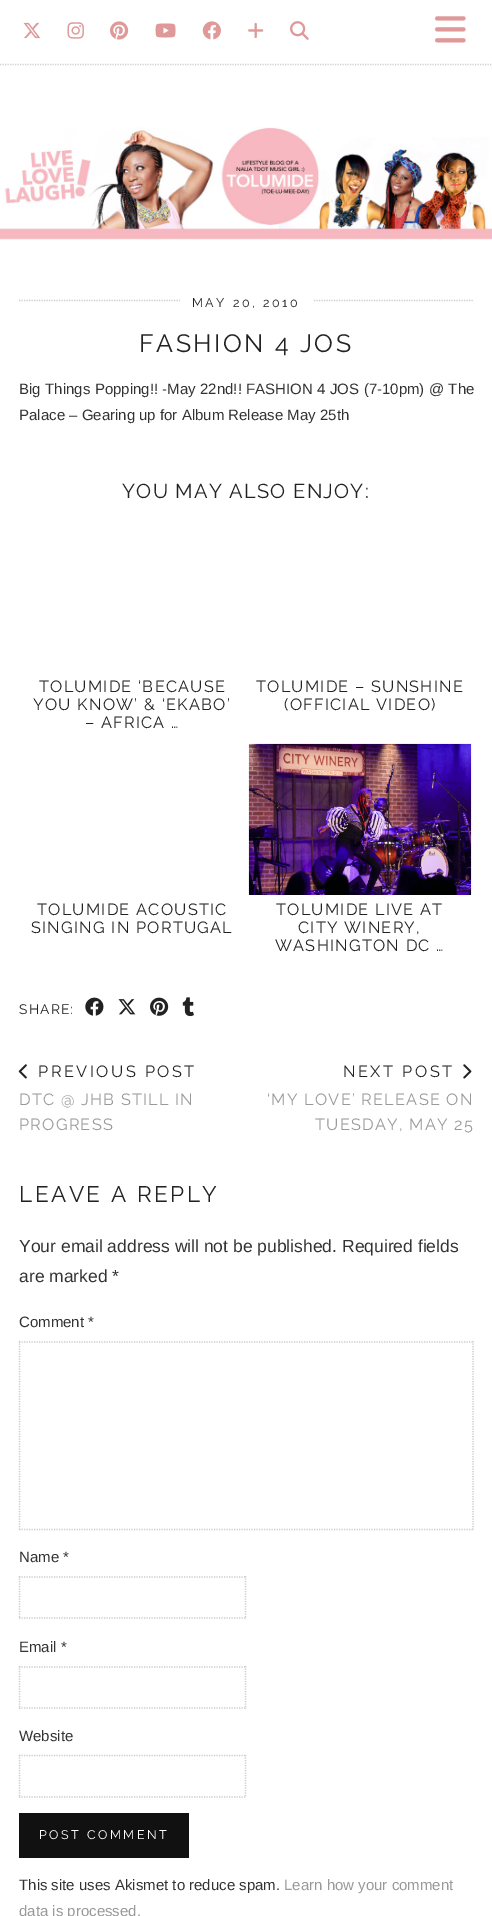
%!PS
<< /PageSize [492 1916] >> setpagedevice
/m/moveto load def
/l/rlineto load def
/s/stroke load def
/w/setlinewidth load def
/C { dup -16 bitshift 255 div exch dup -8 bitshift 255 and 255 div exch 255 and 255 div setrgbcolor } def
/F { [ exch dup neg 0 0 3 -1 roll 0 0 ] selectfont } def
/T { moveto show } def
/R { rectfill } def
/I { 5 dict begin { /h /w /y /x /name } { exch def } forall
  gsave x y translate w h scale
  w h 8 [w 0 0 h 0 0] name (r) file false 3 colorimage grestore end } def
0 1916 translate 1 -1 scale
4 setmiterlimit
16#FFFFFF C
0 0 492 1916 R
16#D1D1D1 C
1.2 w
[1.25 1.25] 0 setdash
0 64.5 m 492.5 0 l s
(1.rgb) 23 22 18 17 I
(2.rgb) 67 22 17 17 I
(3.rgb) 110 21 19 19 I
(4.rgb) 155 23 21 15 I
(5.rgb) 202 21 19 19 I
(6.rgb) 248 22 16 16 I
(7.rgb) 290 21 19 19 I
(8.rgb) 435 16 31 27 I
(9.rgb) 0 127 492 113 I
16#CCCCCC C
19 300.5 m 455 0 l s
16#FFFFFF C
180 299 133 3 R
/Raleway-Thin 12.5 F
16#222222 C
192 307 m 2.5 0 (MAY 20, 2010) ashow
/Raleway-Thin 25 F
139 352 m 2.5 0 (FASHION 4 JOS) ashow
/LiberationSans-Regular 15 F
16#333333 C
19 394 m .25 0 32 (Big Things Popping!! -May 22nd!! FASHION 4 JOS \(7-10pm\) @ The) widthshow
(Palace – Gearing up for Album Release May 25th) 19 420 T
/Raleway-Thin 20 F
16#222222 C
122 498 m 1.25 0 (YOU MAY ALSO ENJOY:) ashow
/Raleway-Thin 16.25 F
39 692 m 1.25 0 (TOLUMIDE ‘BECAUSE) ashow
33 710 m 1.25 0 (YOU KNOW’ & ‘EKABO’) ashow
85 728 m 1.25 0 (– AFRICA …) ashow
256 692 m 1.25 0 (TOLUMIDE – SUNSHINE) ashow
284 710 m 1.25 0 (\(OFFICIAL VIDEO\)) ashow
37 915 m 1.25 0 (TOLUMIDE ACOUSTIC) ashow
31 933 m 1.25 0 (SINGING IN PORTUGAL) ashow
(10.rgb) 248 743 224 152 I
276 915 m 1.25 0 (TOLUMIDE LIVE AT) ashow
298 933 m 1.25 0 (CITY WINERY,) ashow
275 951 m 1.25 0 (WASHINGTON DC …) ashow
/Raleway-Thin 13.75 F
19 1014 m 1.25 0 (SHARE:) ashow
(11.rgb) 85 997 19 19 I
(12.rgb) 118 999 18 16 I
(13.rgb) 150 997 19 19 I
(14.rgb) 182 997 12 20 I
(15.rgb) 18 1064 9 15 I
/Raleway-Thin 16.25 F
38 1077 m 2.5 0 (PREVIOUS POST) ashow
16#999999 C
19 1105 m 1.25 0 (DTC @ JHB STILL IN) ashow
19 1130 m 1.25 0 (PROGRESS) ashow
16#222222 C
343 1077 m 2.5 0 (NEXT POST) ashow
(16.rgb) 463 1064 9 15 I
16#999999 C
267 1105 m 1.25 0 (‘MY LOVE’ RELEASE ON) ashow
315 1130 m 1.25 0 (TUESDAY, MAY 25) ashow
/Raleway-Thin 22.5 F
16#222222 C
19 1202 m 2.5 0 (LEAVE A REPLY) ashow
/LiberationSans-Regular 17.5 F
16#333333 C
(Your email address will not be published. Required fields) 19 1252 T
(are marked *) 19 1282 T
/LiberationSans-Regular 15 F
(Comment *) 19 1327 T
16#CCCCCC C
19 1342 m 455 0 l s
473 1341 m 0 189 l s
19 1529.5 m 455 0 l s
19.5 1341 m 0 189 l s
16#333333 C
(Name *) 19 1562 T
16#CCCCCC C
19 1577 m 227 0 l s
245.5 1576 m 0 43 l s
19 1618 m 227 0 l s
19.5 1576 m 0 43 l s
16#333333 C
(Email *) 19 1652 T
16#CCCCCC C
19 1667 m 227 0 l s
245.5 1666 m 0 43 l s
19 1708 m 227 0 l s
19.5 1666 m 0 43 l s
16#333333 C
(Website) 19 1741 T
16#CCCCCC C
19 1755.5 m 227 0 l s
245.5 1755 m 0 42.5 l s
19 1797 m 227 0 l s
19.5 1755 m 0 42.5 l s
16#111111 C
19 1813 170 45 R
/Raleway-Thin 12.5 F
16#FFFFFF C
39 1839 m 2.5 0 (POST COMMENT) ashow
/LiberationSans-Regular 15 F
16#333333 C
(This site uses Akismet to reduce spam.) 19 1890 T
16#999999 C
(Learn how your comment) 284 1890 T
(data is processed.) 19 1916 T
showpage
